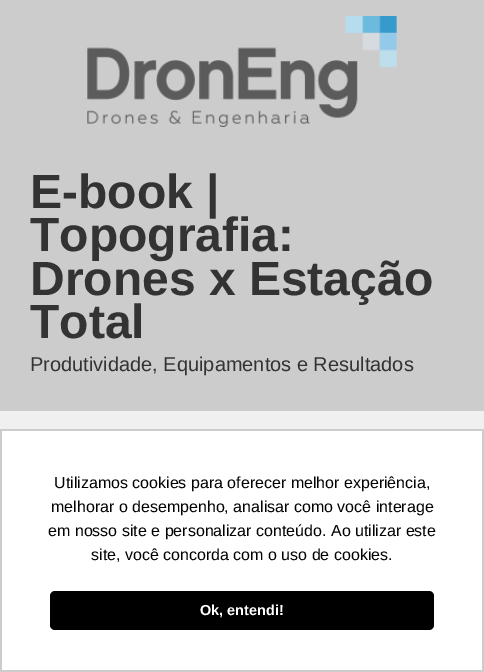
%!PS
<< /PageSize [484 672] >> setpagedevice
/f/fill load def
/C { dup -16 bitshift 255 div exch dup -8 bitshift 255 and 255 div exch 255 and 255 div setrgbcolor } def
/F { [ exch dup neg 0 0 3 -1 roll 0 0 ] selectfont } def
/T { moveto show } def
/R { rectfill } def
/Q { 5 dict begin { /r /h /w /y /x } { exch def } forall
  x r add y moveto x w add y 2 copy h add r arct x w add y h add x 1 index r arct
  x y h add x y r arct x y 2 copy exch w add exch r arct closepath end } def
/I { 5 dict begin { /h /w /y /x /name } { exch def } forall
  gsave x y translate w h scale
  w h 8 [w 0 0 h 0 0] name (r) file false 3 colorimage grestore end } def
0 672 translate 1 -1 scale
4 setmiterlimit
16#CCCCCC C
0 0 484 672 R
(1.rgb) 87 16 310 111 I
/LiberationSans-Bold 48 F
16#333333 C
(E-book |) 30 208 T
(Topografia:) 30 251 T
(Drones x Estação) 30 295 T
(Total) 30 338 T
/LiberationSans-Regular 20 F
(Produtividade, Equipamentos e Resultados) 30 371 T
16#F0F0F0 C
0 411 484 18 R
16#FFFFFF C
2 431 480 239 R
/LiberationSans-Regular 16 F
16#000000 C
(Utilizamos cookies para oferecer melhor experiência,) 54 488 T
(melhorar o desempenho, analisar como você interage) 51 512 T
(em nosso site e personalizar conteúdo. Ao utilizar este) 48 536 T
(site, você concorda com o uso de cookies.) 91 560 T
50 591 384 39 5 Q f
/LiberationSans-Bold 14.5 F
16#FFFFFF C
(Ok, entendi!) 200 615 T
showpage
